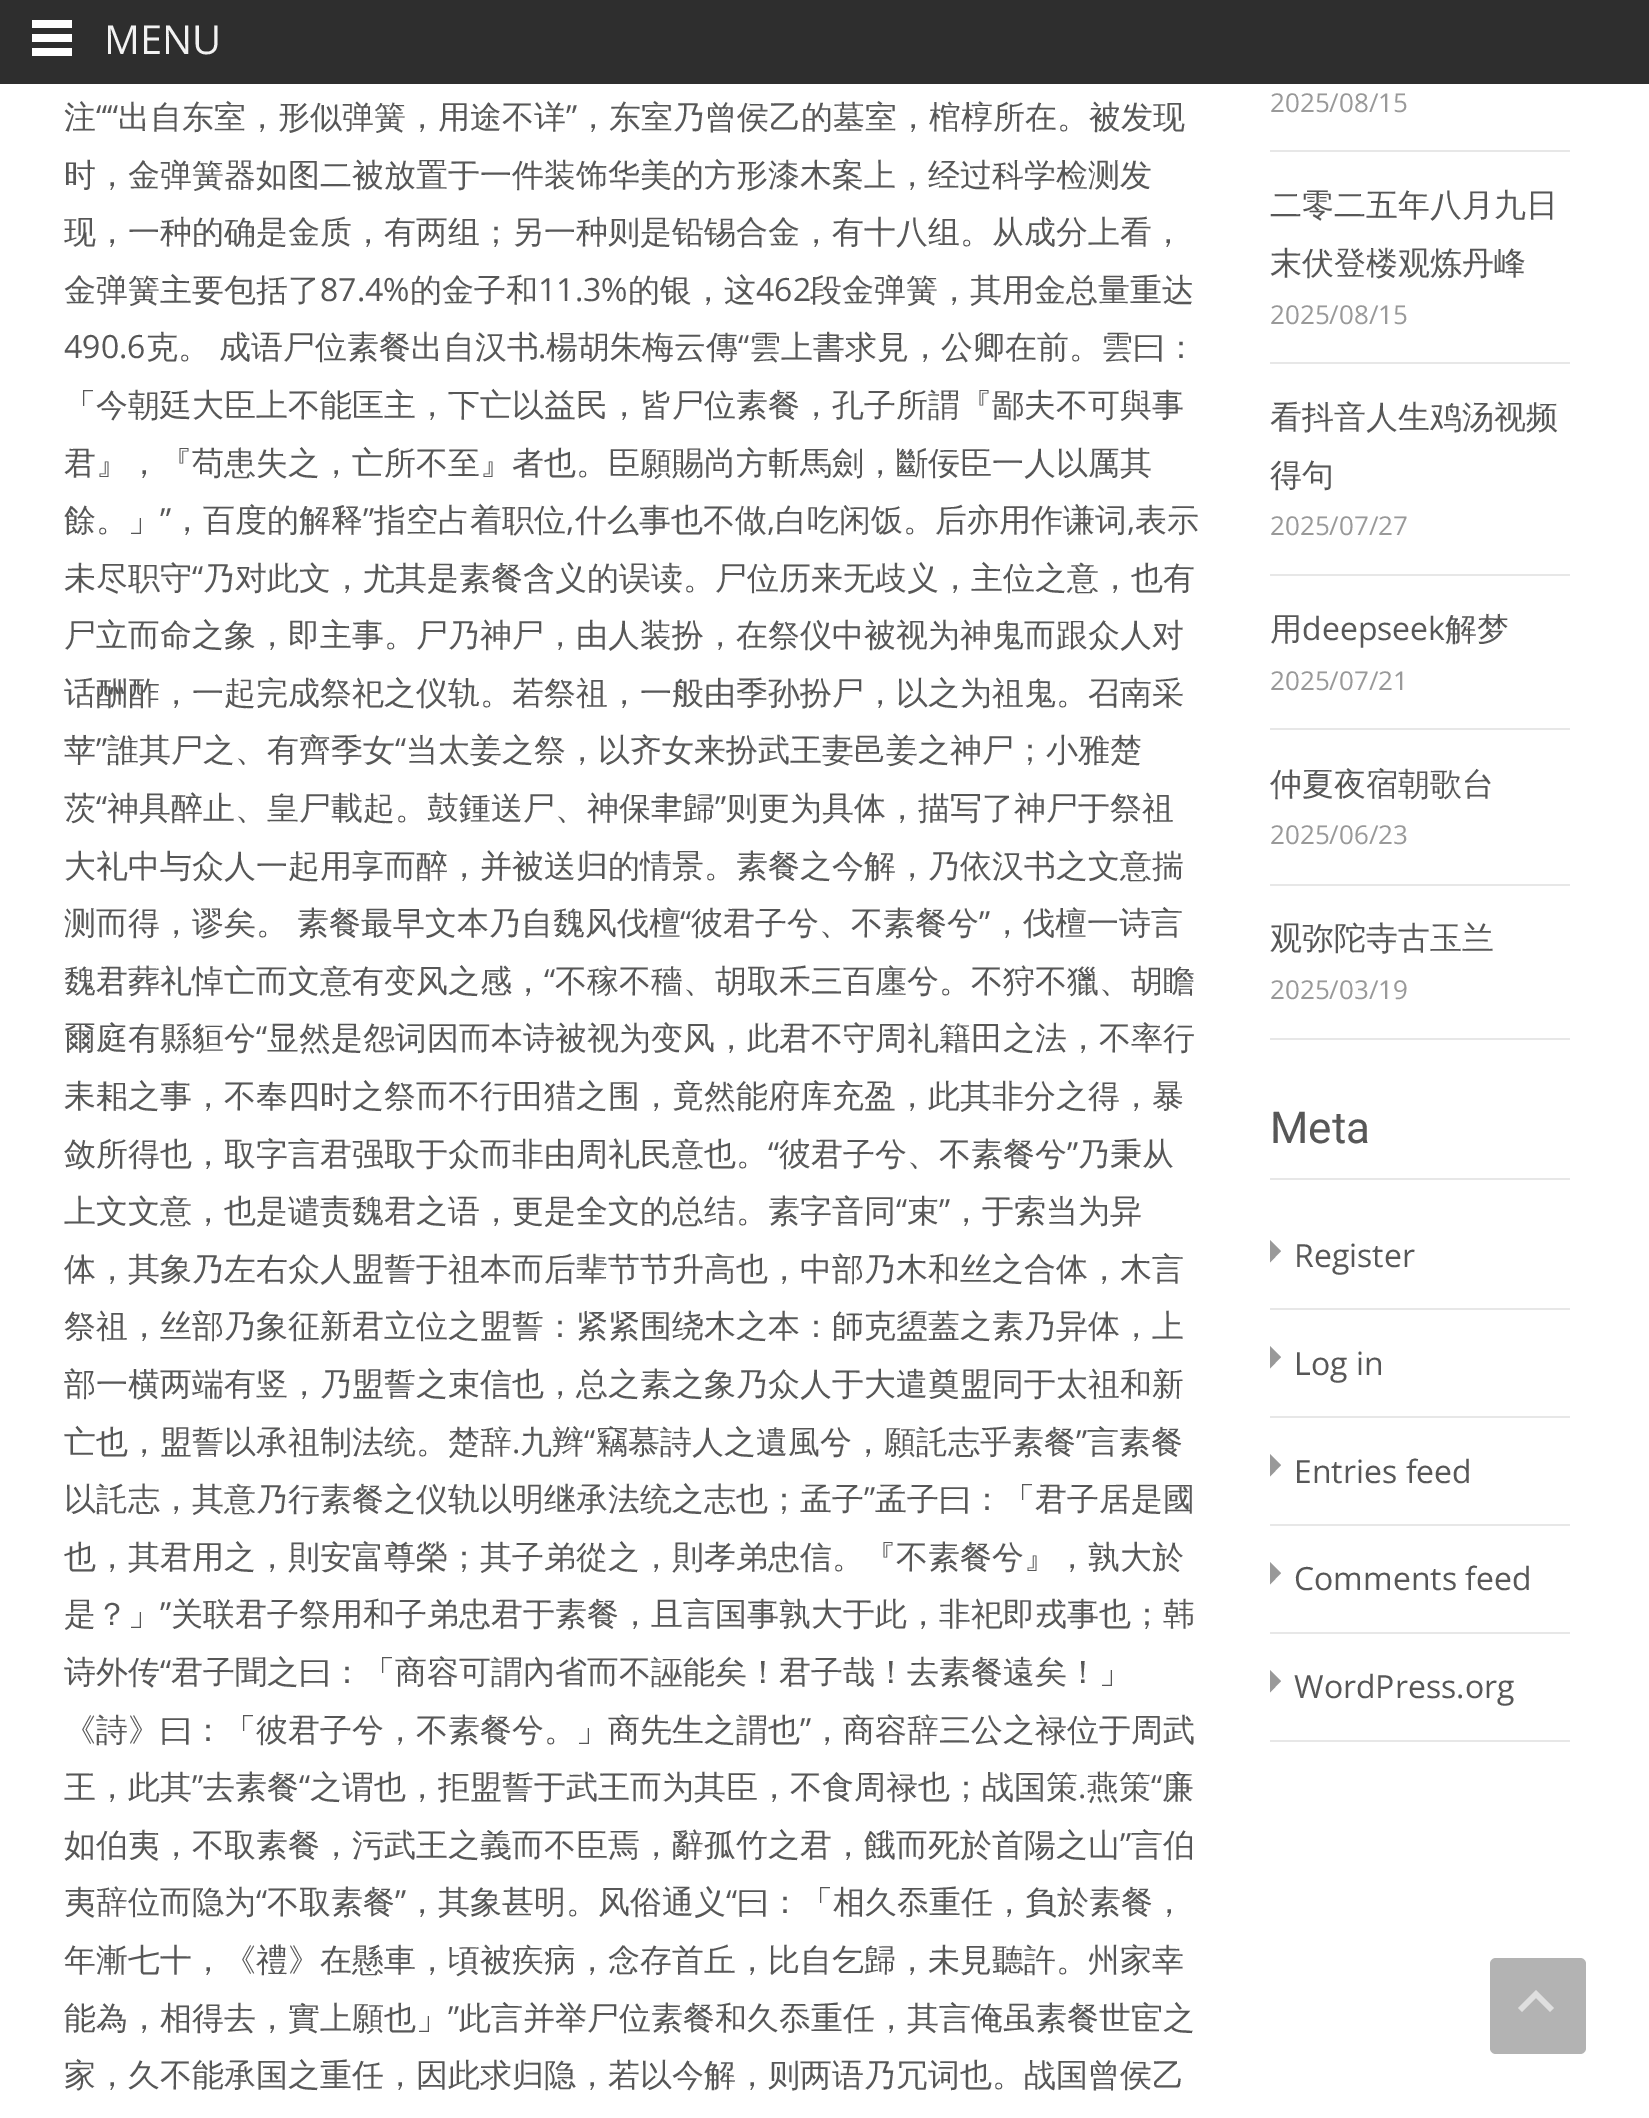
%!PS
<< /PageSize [1649 2118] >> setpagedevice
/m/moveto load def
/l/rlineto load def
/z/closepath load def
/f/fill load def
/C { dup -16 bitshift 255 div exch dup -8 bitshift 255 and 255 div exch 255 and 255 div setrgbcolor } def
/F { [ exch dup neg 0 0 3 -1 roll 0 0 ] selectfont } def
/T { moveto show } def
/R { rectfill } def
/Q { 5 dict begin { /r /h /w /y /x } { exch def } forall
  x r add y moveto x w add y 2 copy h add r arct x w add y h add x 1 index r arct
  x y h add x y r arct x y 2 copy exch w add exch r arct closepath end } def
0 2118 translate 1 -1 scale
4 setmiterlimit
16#FFFFFF C
0 0 1649 2118 R
16#2E2E2E C
0 0 1649 84 R
16#FFFFFF C
32 20 40 8 R
32 34 40 8 R
32 48 40 8 R
/OpenSans-Regular 40 F
16#F2F2F2 C
(MENU) 104 54 T
/WenQuanYiZenHei-Medium 32 F
16#575757 C
(注) 64 128 T
/OpenSans-Regular 32 F
(““) 96 128 T
/WenQuanYiZenHei-Medium 32 F
(出自东室，形似弹簧，用途不详) 118 128 T
/OpenSans-Regular 32 F
(”) 566 128 T
/WenQuanYiZenHei-Medium 32 F
(，东室乃曾侯乙的墓室，棺椁所在。被发现) 577 128 T
(时，金弹簧器如图二被放置于一件装饰华美的方形漆木案上，经过科学检测发) 64 186 T
(现，一种的确是金质，有两组；另一种则是铅锡合金，有十八组。从成分上看，) 64 243 T
(金弹簧主要包括了) 64 301 T
/OpenSans-Regular 32 F
(87.4%) 320 301 T
/WenQuanYiZenHei-Medium 32 F
(的金子和) 410 301 T
/OpenSans-Regular 32 F
(11.3%) 538 301 T
/WenQuanYiZenHei-Medium 32 F
(的银，这) 628 301 T
/OpenSans-Regular 32 F
(462) 756 301 T
/WenQuanYiZenHei-Medium 32 F
(段金弹簧，其用金总量重达) 810 301 T
/OpenSans-Regular 32 F
(490.6) 64 358 T
/WenQuanYiZenHei-Medium 32 F
146 358 m -1 0 32 (克。 成语尸位素餐出自汉书) widthshow
(楊胡朱梅云傳) 546 358 T
/OpenSans-Regular 32 F
(“) 738 358 T
/WenQuanYiZenHei-Medium 32 F
(雲上書求見，公卿在前。雲曰：) 749 358 T
/OpenSans-Regular 32 F
(.) 538 358 T
/WenQuanYiZenHei-Medium 32 F
(「今朝廷大臣上不能匡主，下亡以益民，皆尸位素餐，孔子所謂『鄙夫不可與事) 64 416 T
(君』，『苟患失之，亡所不至』者也。臣願賜尚方斬馬劍，斷佞臣一人以厲其) 64 474 T
(餘。」) 64 531 T
/OpenSans-Regular 32 F
(”) 160 531 T
/WenQuanYiZenHei-Medium 32 F
(，百度的解释) 171 531 T
/OpenSans-Regular 32 F
(”) 363 531 T
/WenQuanYiZenHei-Medium 32 F
(指空占着职位) 374 531 T
(什么事也不做) 575 531 T
(白吃闲饭。后亦用作谦词) 775 531 T
(表示) 1135 531 T
/OpenSans-Regular 32 F
(,) 566 531 T
(,) 767 531 T
(,) 1127 531 T
/WenQuanYiZenHei-Medium 32 F
(未尽职守) 64 589 T
/OpenSans-Regular 32 F
(“) 192 589 T
/WenQuanYiZenHei-Medium 32 F
(乃对此文，尤其是素餐含义的误读。尸位历来无歧义，主位之意，也有) 203 589 T
(尸立而命之象，即主事。尸乃神尸，由人装扮，在祭仪中被视为神鬼而跟众人对) 64 646 T
(话酬酢，一起完成祭祀之仪轨。若祭祖，一般由季孙扮尸，以之为祖鬼。召南采) 64 704 T
(苹) 64 761 T
/OpenSans-Regular 32 F
(”) 96 761 T
/WenQuanYiZenHei-Medium 32 F
(誰其尸之、有齊季女) 107 761 T
/OpenSans-Regular 32 F
(“) 395 761 T
/WenQuanYiZenHei-Medium 32 F
(当太姜之祭，以齐女来扮武王妻邑姜之神尸；小雅楚) 406 761 T
(茨) 64 819 T
/OpenSans-Regular 32 F
(“) 96 819 T
/WenQuanYiZenHei-Medium 32 F
(神具醉止、皇尸載起。鼓鍾送尸、神保聿歸) 107 819 T
/OpenSans-Regular 32 F
(”) 715 819 T
/WenQuanYiZenHei-Medium 32 F
(则更为具体，描写了神尸于祭祖) 726 819 T
(大礼中与众人一起用享而醉，并被送归的情景。素餐之今解，乃依汉书之文意揣) 64 877 T
64 934 m -1 0 32 (测而得，谬矣。 素餐最早文本乃自魏风伐檀) widthshow
/OpenSans-Regular 32 F
(“) 680 934 T
/WenQuanYiZenHei-Medium 32 F
(彼君子兮、不素餐兮) 691 934 T
/OpenSans-Regular 32 F
(”) 979 934 T
/WenQuanYiZenHei-Medium 32 F
(，伐檀一诗言) 991 934 T
(魏君葬礼悼亡而文意有变风之感，) 64 992 T
/OpenSans-Regular 32 F
(“) 544 992 T
/WenQuanYiZenHei-Medium 32 F
(不稼不穡、胡取禾三百廛兮。不狩不獵、胡瞻) 555 992 T
(爾庭有縣貆兮) 64 1049 T
/OpenSans-Regular 32 F
(“) 256 1049 T
/WenQuanYiZenHei-Medium 32 F
(显然是怨词因而本诗被视为变风，此君不守周礼籍田之法，不率行) 267 1049 T
(耒耜之事，不奉四时之祭而不行田猎之围，竟然能府库充盈，此其非分之得，暴) 64 1107 T
(敛所得也，取字言君强取于众而非由周礼民意也。) 64 1165 T
/OpenSans-Regular 32 F
(“) 768 1165 T
/WenQuanYiZenHei-Medium 32 F
(彼君子兮、不素餐兮) 779 1165 T
/OpenSans-Regular 32 F
(”) 1067 1165 T
/WenQuanYiZenHei-Medium 32 F
(乃秉从) 1078 1165 T
(上文文意，也是谴责魏君之语，更是全文的总结。素字音同) 64 1222 T
/OpenSans-Regular 32 F
(“) 896 1222 T
/WenQuanYiZenHei-Medium 32 F
(束) 907 1222 T
/OpenSans-Regular 32 F
(”) 939 1222 T
/WenQuanYiZenHei-Medium 32 F
(，于索当为异) 950 1222 T
(体，其象乃左右众人盟誓于祖本而后辈节节升高也，中部乃木和丝之合体，木言) 64 1280 T
(祭祖，丝部乃象征新君立位之盟誓：紧紧围绕木之本：師克盨蓋之素乃异体，上) 64 1337 T
(部一横两端有竖，乃盟誓之束信也，总之素之象乃众人于大遣奠盟同于太祖和新) 64 1395 T
(亡也，盟誓以承祖制法统。楚辞) 64 1453 T
(九辫) 520 1453 T
/OpenSans-Regular 32 F
(“) 584 1453 T
/WenQuanYiZenHei-Medium 32 F
(竊慕詩人之遺風兮，願託志乎素餐) 596 1453 T
/OpenSans-Regular 32 F
(”) 1076 1453 T
/WenQuanYiZenHei-Medium 32 F
(言素餐) 1087 1453 T
/OpenSans-Regular 32 F
(.) 512 1453 T
/WenQuanYiZenHei-Medium 32 F
(以託志，其意乃行素餐之仪轨以明继承法统之志也；孟子) 64 1510 T
/OpenSans-Regular 32 F
(”) 864 1510 T
/WenQuanYiZenHei-Medium 32 F
(孟子曰：「君子居是國) 875 1510 T
(也，其君用之，則安富尊榮；其子弟從之，則孝弟忠信。『不素餐兮』，孰大於) 64 1568 T
(是？」) 64 1625 T
/OpenSans-Regular 32 F
(”) 160 1625 T
/WenQuanYiZenHei-Medium 32 F
(关联君子祭用和子弟忠君于素餐，且言国事孰大于此，非祀即戎事也；韩) 171 1625 T
(诗外传) 64 1683 T
/OpenSans-Regular 32 F
(“) 160 1683 T
/WenQuanYiZenHei-Medium 32 F
(君子聞之曰：「商容可謂內省而不誣能矣！君子哉！去素餐遠矣！」) 171 1683 T
(《詩》曰：「彼君子兮，不素餐兮。」商先生之謂也) 64 1741 T
/OpenSans-Regular 32 F
(”) 800 1741 T
/WenQuanYiZenHei-Medium 32 F
(，商容辞三公之禄位于周武) 811 1741 T
(王，此其) 64 1798 T
/OpenSans-Regular 32 F
(”) 192 1798 T
/WenQuanYiZenHei-Medium 32 F
(去素餐) 203 1798 T
/OpenSans-Regular 32 F
(“) 299 1798 T
/WenQuanYiZenHei-Medium 32 F
(之谓也，拒盟誓于武王而为其臣，不食周禄也；战国策) 310 1798 T
(燕策) 1087 1798 T
/OpenSans-Regular 32 F
(“) 1151 1798 T
/WenQuanYiZenHei-Medium 32 F
(廉) 1162 1798 T
/OpenSans-Regular 32 F
(.) 1078 1798 T
/WenQuanYiZenHei-Medium 32 F
(如伯夷，不取素餐，污武王之義而不臣焉，辭孤竹之君，餓而死於首陽之山) 64 1856 T
/OpenSans-Regular 32 F
(”) 1120 1856 T
/WenQuanYiZenHei-Medium 32 F
(言伯) 1131 1856 T
(夷辞位而隐为) 64 1913 T
/OpenSans-Regular 32 F
(“) 256 1913 T
/WenQuanYiZenHei-Medium 32 F
(不取素餐) 267 1913 T
/OpenSans-Regular 32 F
(”) 395 1913 T
/WenQuanYiZenHei-Medium 32 F
(，其象甚明。风俗通义) 406 1913 T
/OpenSans-Regular 32 F
(“) 726 1913 T
/WenQuanYiZenHei-Medium 32 F
(曰：「相久忝重任，負於素餐，) 737 1913 T
(年漸七十，《禮》在懸車，頃被疾病，念存首丘，比自乞歸，未見聽許。州家幸) 64 1971 T
(能為，相得去，實上願也」) 64 2029 T
/OpenSans-Regular 32 F
(”) 448 2029 T
/WenQuanYiZenHei-Medium 32 F
(此言并举尸位素餐和久忝重任，其言俺虽素餐世宦之) 459 2029 T
(家，久不能承国之重任，因此求归隐，若以今解，则两语乃冗词也。战国曾侯乙) 64 2086 T
16#E7E7E7 C
1270 150 300 2 R
/OpenSans-Regular 26 F
16#999999 C
(2025/08/15) 1270 112 T
16#E7E7E7 C
1270 362 300 2 R
/WenQuanYiZenHei-Medium 32 F
16#575757 C
(二零二五年八月九日) 1270 216 T
(末伏登楼观炼丹峰) 1270 274 T
/OpenSans-Regular 26 F
16#999999 C
(2025/08/15) 1270 324 T
16#E7E7E7 C
1270 574 300 2 R
/WenQuanYiZenHei-Medium 32 F
16#575757 C
(看抖音人生鸡汤视频) 1270 428 T
(得句) 1270 486 T
/OpenSans-Regular 26 F
16#999999 C
(2025/07/27) 1270 535 T
16#E7E7E7 C
1270 728 300 2 R
/WenQuanYiZenHei-Medium 32 F
16#575757 C
(用) 1270 640 T
/OpenSans-Regular 32 F
(deepseek) 1302 640 T
/WenQuanYiZenHei-Medium 32 F
(解梦) 1445 640 T
/OpenSans-Regular 26 F
16#999999 C
(2025/07/21) 1270 690 T
16#E7E7E7 C
1270 884 300 2 R
/WenQuanYiZenHei-Medium 32 F
16#575757 C
(仲夏夜宿朝歌台) 1270 795 T
/OpenSans-Regular 26 F
16#999999 C
(2025/06/23) 1270 844 T
16#E7E7E7 C
1270 1038 300 2 R
/WenQuanYiZenHei-Medium 32 F
16#575757 C
(观弥陀寺古玉兰) 1270 949 T
/OpenSans-Regular 26 F
16#999999 C
(2025/03/19) 1270 999 T
16#E7E7E7 C
1270 1178 300 2 R
/Roboto-Regular 44 F
16#575757 C
(Meta) 1270 1143 T
16#E7E7E7 C
1270 1308 300 2 R
16#999999 C
1270 1262.5 m 11 -11.5 l -11 -11 l z f
/OpenSans-Regular 32 F
16#575757 C
(Register) 1294 1267 T
16#E7E7E7 C
1270 1416 300 2 R
16#999999 C
1270 1368.5 m 11 -11.5 l -11 -11 l z f
16#575757 C
(Log in) 1294 1375 T
16#E7E7E7 C
1270 1524 300 2 R
16#999999 C
1270 1476.5 m 11 -11.5 l -11 -11 l z f
16#575757 C
(Entries feed) 1294 1483 T
16#E7E7E7 C
1270 1632 300 2 R
16#999999 C
1270 1584.5 m 11 -11.5 l -11 -11 l z f
16#575757 C
(Comments feed) 1294 1590 T
16#E7E7E7 C
1270 1740 300 2 R
16#999999 C
1270 1692.5 m 11 -11.5 l -11 -11 l z f
16#575757 C
(WordPress.org) 1294 1698 T
16#B3B3B3 C
1490 1958 96 96 6 Q f
16#DFDFDF C
1518 2008 m 18 -18 l 18 18 l -4 4 l -14 -14 l -14 14 l z f
showpage
